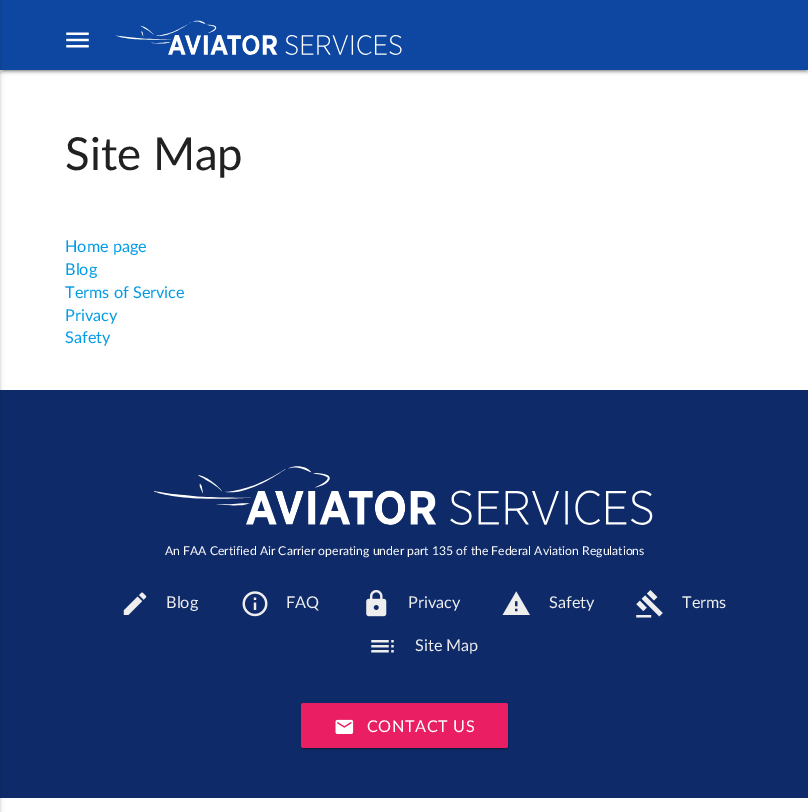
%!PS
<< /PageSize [808 812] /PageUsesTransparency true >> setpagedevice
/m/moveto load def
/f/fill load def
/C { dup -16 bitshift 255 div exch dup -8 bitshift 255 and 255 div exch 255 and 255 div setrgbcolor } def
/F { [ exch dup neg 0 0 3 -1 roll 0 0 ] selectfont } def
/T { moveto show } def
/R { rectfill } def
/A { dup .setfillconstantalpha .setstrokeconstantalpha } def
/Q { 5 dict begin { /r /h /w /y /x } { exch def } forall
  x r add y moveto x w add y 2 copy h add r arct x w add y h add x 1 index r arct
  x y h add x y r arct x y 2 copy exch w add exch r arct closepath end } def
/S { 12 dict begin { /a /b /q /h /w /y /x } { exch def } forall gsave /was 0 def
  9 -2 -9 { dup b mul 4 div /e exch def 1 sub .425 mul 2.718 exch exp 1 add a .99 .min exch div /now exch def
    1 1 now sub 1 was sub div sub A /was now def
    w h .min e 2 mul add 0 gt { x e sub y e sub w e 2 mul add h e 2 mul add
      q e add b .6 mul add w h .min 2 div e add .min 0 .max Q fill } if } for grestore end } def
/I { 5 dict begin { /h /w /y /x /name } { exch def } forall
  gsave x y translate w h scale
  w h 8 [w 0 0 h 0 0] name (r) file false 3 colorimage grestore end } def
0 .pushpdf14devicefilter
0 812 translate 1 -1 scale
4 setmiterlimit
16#FFFFFF C
0 0 808 812 R
16#000000 C
3 6 803 65 0 .5 .2 S
0 1 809 70 0 3 .12 S
0 3 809 70 0 1 .14 S
16#0D47A1 C
0 0 808 70 R
16#0F2A69 C
0 390 808 408 R
16#000000 C
-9 1 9 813 0 3 .12 S
-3 3 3 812 0 1 .14 S
(1.rgb) 66 32 23 16 I
(2.rgb) 115 20 287 35 I
/Lato-Regular 45.5 F
16#212121 C
(Site Map) 65 170 T
/Lato-Regular 16.25 F
16#039BE5 C
(Home page) 65 252 T
(Blog) 65 275 T
(Terms of Service) 65 298 T
(Privacy) 65 321 T
(Safety) 65 343 T
(3.rgb) 154 466 499 59 I
/Lato-Regular 12.2 F
16#FFFFFF C
(An FAA Certified Air Carrier operating under part 135 of the Federal Aviation Regulations) 165 555 T
(4.rgb) 123 592 24 23 I
/Lato-Regular 16.25 F
16#EEEEEE C
(Blog) 166 608 T
(5.rgb) 242 591 26 26 I
(FAQ) 286 608 T
(6.rgb) 366 590 21 27 I
(Privacy) 408 608 T
(7.rgb) 502 591 28 24 I
(Safety) 549 608 T
(8.rgb) 636 590 27 28 I
(Terms) 682 608 T
(9.rgb) 371 640 23 13 I
(Site Map) 415 651 T
16#000000 C
304 709 201 40 0 .5 .2 S
301 704 207 45 2.5 3 .12 S
301 705 207 45 2.5 1 .14 S
16#E91E63 C
301 703 207 45 2.5 Q f
(10.rgb) 335 719 19 15 I
16#FFFFFF C
367 732 m .6 0 (CONTACT US) ashow
.poppdf14devicefilter showpage
